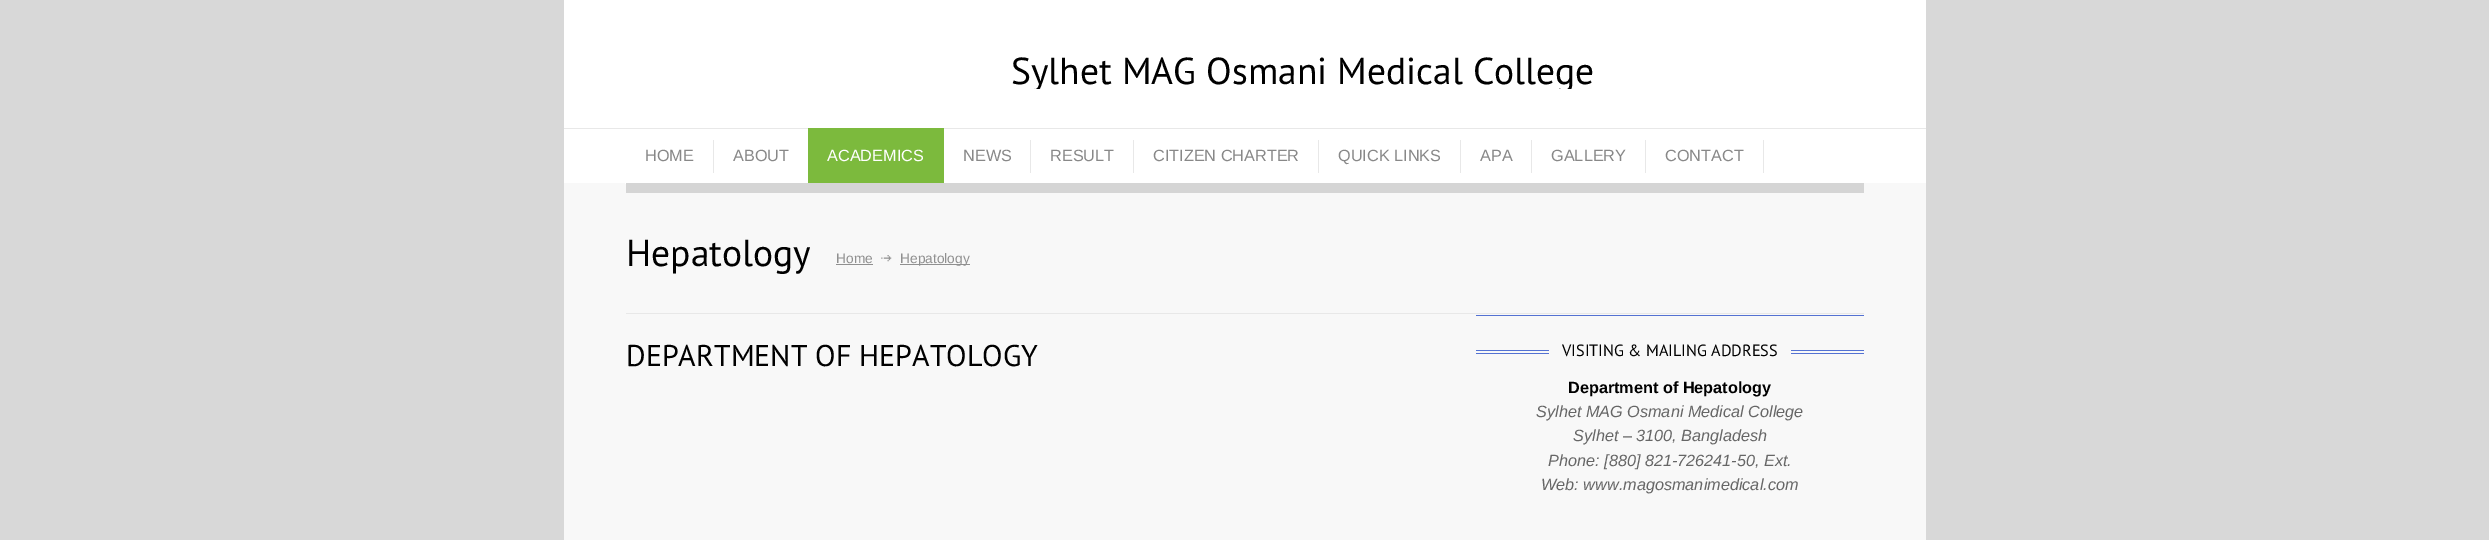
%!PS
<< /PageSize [2489 540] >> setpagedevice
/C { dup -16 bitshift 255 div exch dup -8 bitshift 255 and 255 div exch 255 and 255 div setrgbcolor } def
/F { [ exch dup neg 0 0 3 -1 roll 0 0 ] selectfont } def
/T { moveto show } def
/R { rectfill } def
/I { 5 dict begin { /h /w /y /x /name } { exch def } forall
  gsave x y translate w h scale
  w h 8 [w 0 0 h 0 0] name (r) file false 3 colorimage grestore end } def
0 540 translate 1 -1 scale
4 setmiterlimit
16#D8D8D8 C
0 0 2489 540 R
16#F8F8F8 C
564 183 1362 357 R
16#FFFFFF C
564 0 1362 89 R
/PTSans-Regular 37.5 F
16#000000 C
(Sylhet MAG Osmani Medical College) 1011 84 T
16#FFFFFF C
564 89 1362 39 R
16#E8E8E8 C
564 128 1362 1 R
16#FFFFFF C
564 129 1362 54 R
625 183 88 1 R
/LiberationSans-Regular 16.25 F
16#888888 C
(HOME) 645 161 T
16#E8E8E8 C
713 140 1 33 R
16#888888 C
(ABOUT) 733 161 T
16#7CBA3D C
808 128 136 55 R
16#FFFFFF C
(ACADEMICS) 827 161 T
16#888888 C
(NEWS) 963 161 T
16#E8E8E8 C
1030 140 1 33 R
16#888888 C
(RESULT) 1050 161 T
16#E8E8E8 C
1133 140 1 33 R
16#888888 C
(CITIZEN CHARTER) 1153 161 T
16#E8E8E8 C
1318 140 1 33 R
16#888888 C
(QUICK LINKS) 1338 161 T
16#E8E8E8 C
1460 140 1 33 R
16#888888 C
(APA) 1480 161 T
16#E8E8E8 C
1531 140 1 33 R
16#888888 C
(GALLERY) 1551 161 T
16#E8E8E8 C
1645 140 1 33 R
16#888888 C
(CONTACT) 1665 161 T
16#E8E8E8 C
1763 140 1 33 R
16#D5D5D5 C
626 183 1238 10 R
16#E8E8E8 C
626 313 1238 1 R
/PTSans-Regular 37.5 F
16#000000 C
(Hepatology) 626 266 T
/LiberationSans-Regular 13.75 F
16#909090 C
(Home) 836 263 T
836 264 37 1 R
(1.rgb) 881 255 11 7 I
900 264 70 1 R
(Hepatology) 900 263 T
/PTSans-Regular 30 F
16#000000 C
(DEPARTMENT OF HEPATOLOGY) 626 366 T
16#5472D2 C
1476 315 388 1 R
1476 350 73 1 R
1476 353 73 1 R
/PTSans-Regular 16.25 F
16#000000 C
(VISITING & MAILING ADDRESS) 1562 356 T
16#5472D2 C
1791 350 73 1 R
1791 353 73 1 R
/LiberationSans-Bold 16.25 F
16#000000 C
(Department of Hepatology) 1568 393 T
/LiberationSans-Italic 16.25 F
16#666666 C
(Sylhet MAG Osmani Medical College) 1536 417 T
(Sylhet – 3100, Bangladesh) 1573 441 T
(Phone: [880] 821-726241-50, Ext.) 1548 466 T
(Web: www.magosmanimedical.com) 1541 490 T
showpage
